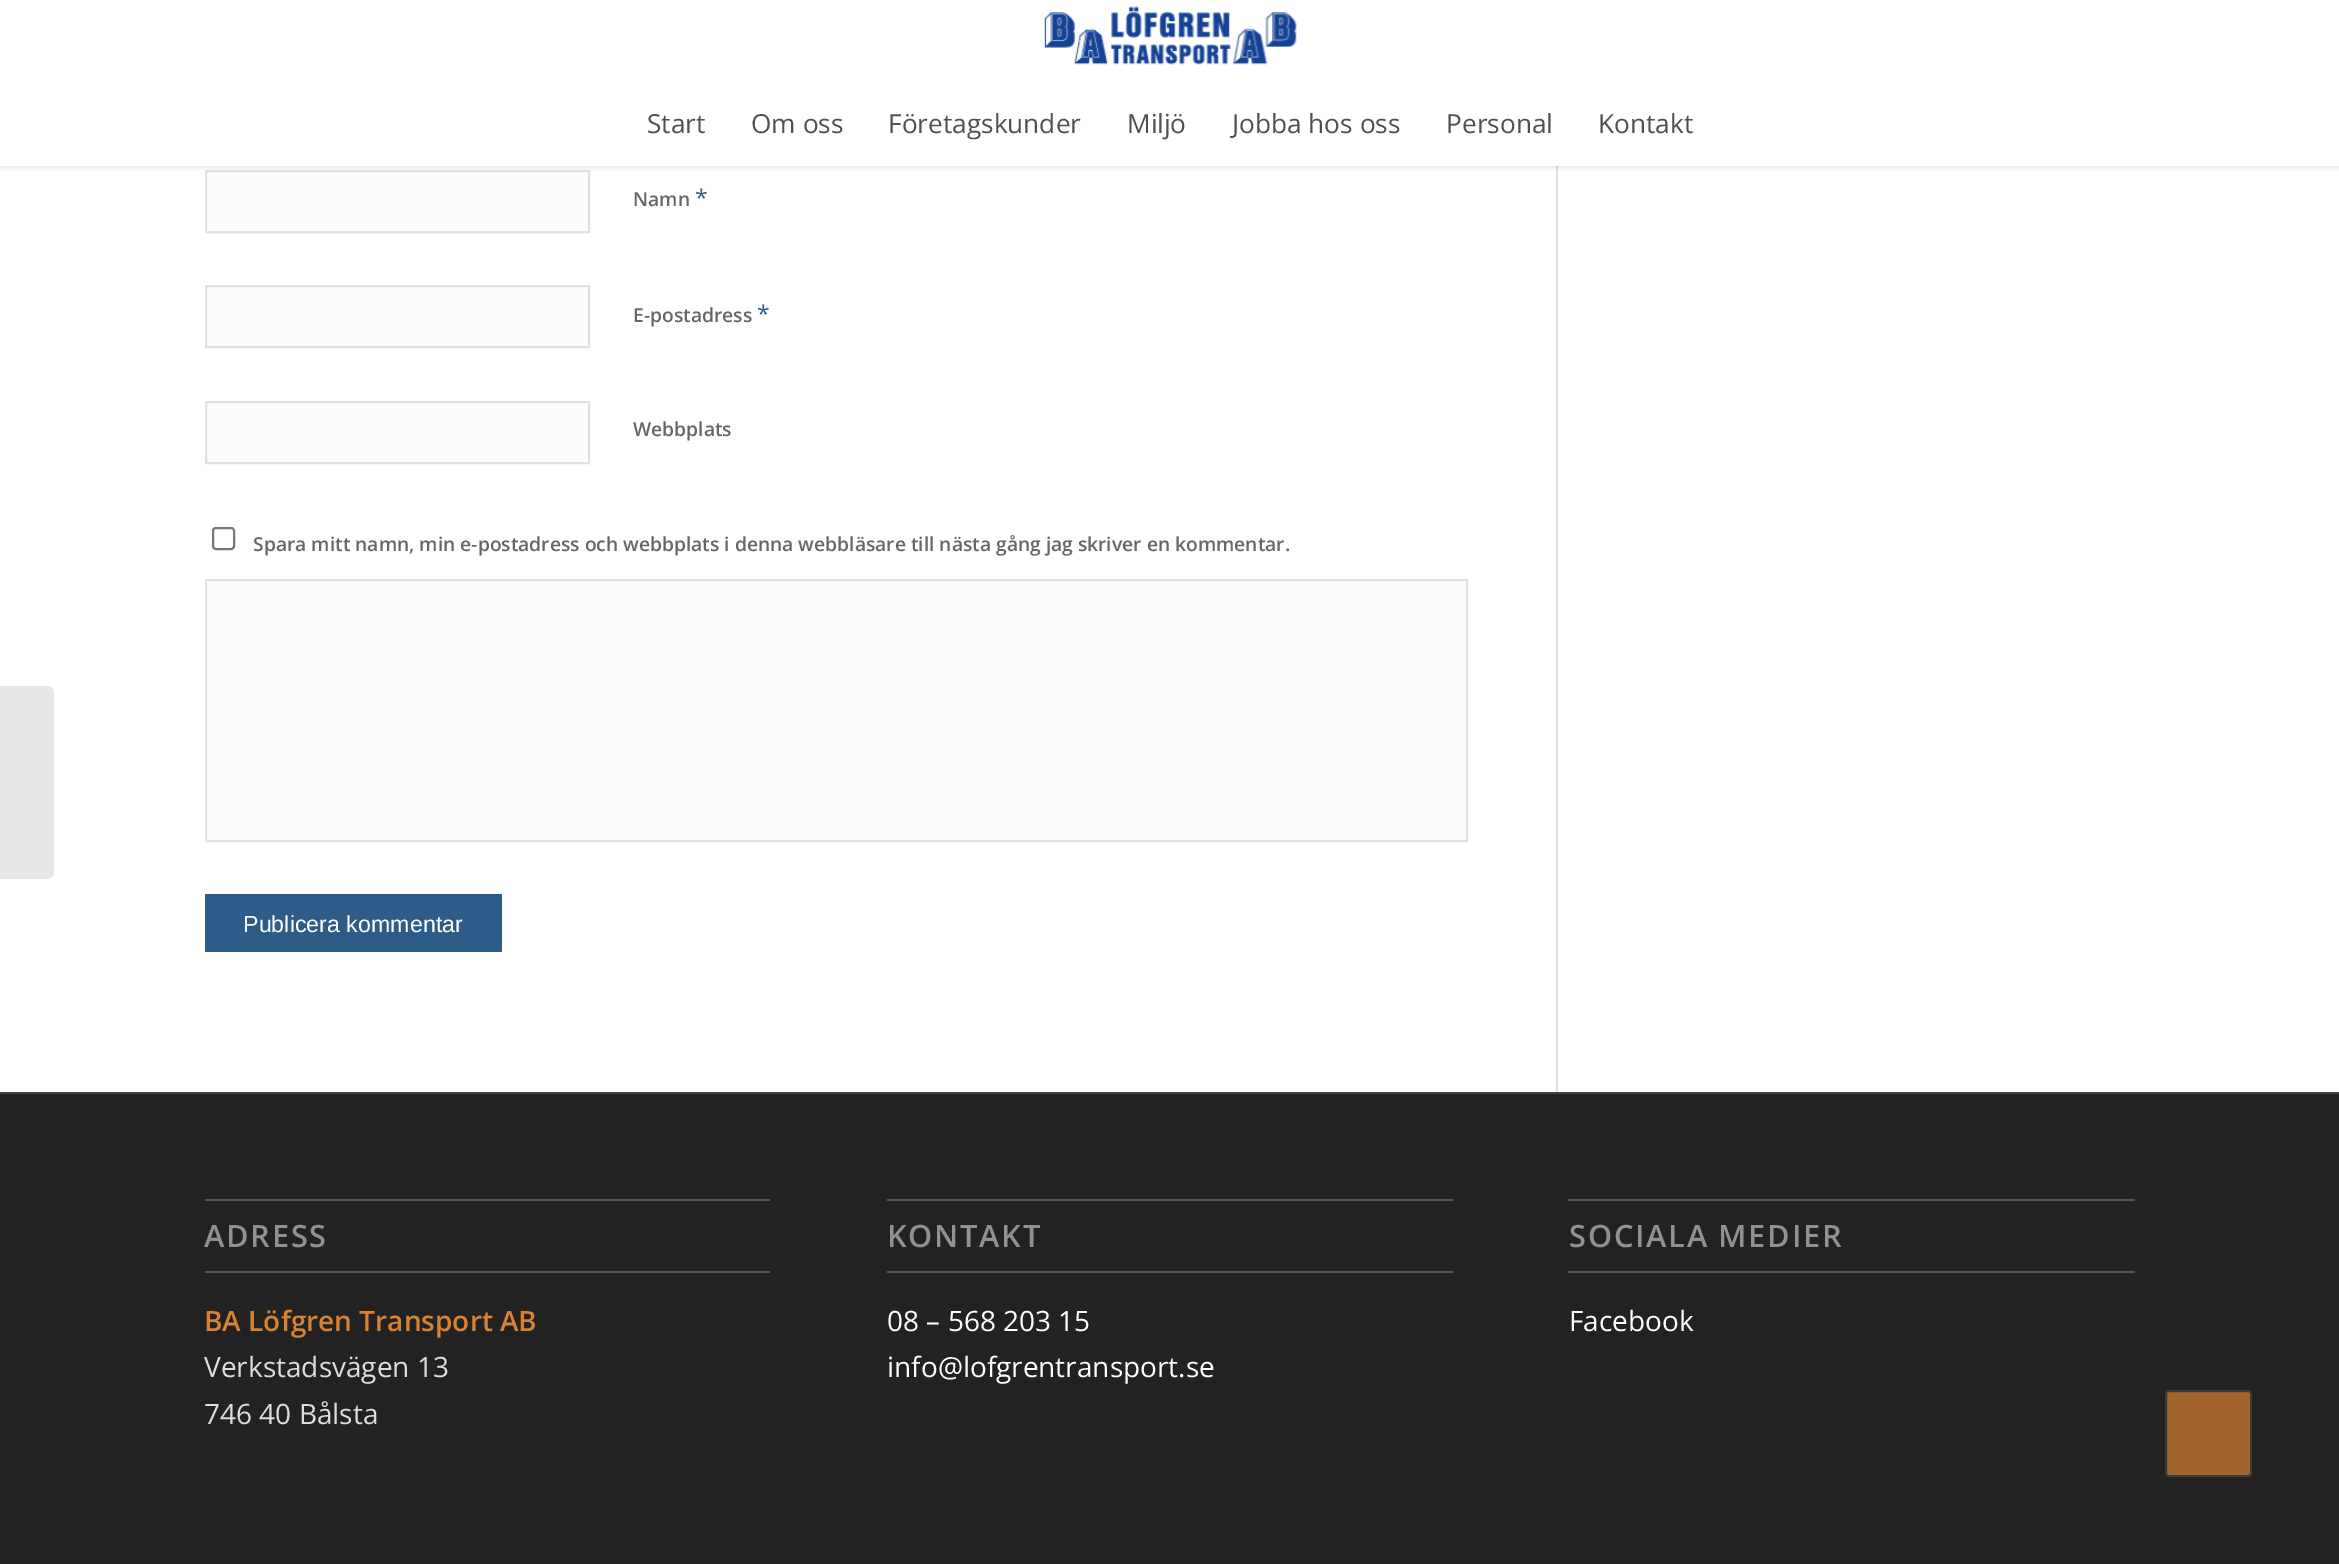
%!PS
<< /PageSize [2339 1564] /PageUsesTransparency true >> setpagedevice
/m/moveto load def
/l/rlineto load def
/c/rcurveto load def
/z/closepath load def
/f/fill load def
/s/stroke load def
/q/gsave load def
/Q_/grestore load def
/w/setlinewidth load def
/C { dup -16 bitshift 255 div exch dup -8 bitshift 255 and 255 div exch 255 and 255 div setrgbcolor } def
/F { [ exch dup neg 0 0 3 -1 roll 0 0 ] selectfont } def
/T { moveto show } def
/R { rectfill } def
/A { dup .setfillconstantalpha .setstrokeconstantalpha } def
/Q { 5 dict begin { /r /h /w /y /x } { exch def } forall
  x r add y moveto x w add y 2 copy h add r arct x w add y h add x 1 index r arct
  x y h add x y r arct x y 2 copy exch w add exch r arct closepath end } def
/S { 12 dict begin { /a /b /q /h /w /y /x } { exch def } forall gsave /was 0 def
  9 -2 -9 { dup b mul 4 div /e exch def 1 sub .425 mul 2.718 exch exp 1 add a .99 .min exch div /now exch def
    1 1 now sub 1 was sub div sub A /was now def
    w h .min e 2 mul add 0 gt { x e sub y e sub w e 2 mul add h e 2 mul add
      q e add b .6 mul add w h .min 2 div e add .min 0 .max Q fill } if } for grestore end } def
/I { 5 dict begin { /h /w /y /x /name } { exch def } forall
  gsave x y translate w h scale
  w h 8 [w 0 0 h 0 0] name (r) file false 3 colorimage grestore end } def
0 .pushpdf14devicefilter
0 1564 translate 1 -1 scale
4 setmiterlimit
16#FFFFFF C
0 0 2339 1564 R
16#E1E1E1 C
1556 166 2 926 R
16#FCFCFC C
206 171 m 383 0 l 0 61 l -383 0 l z q f Q_
16#E1E1E1 C
2 w
s
16#000000 C
-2 -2 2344 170 0 2 .1 S
16#FFFFFF C
0 0 2339 166 R
(1.rgb) 1044 6 253 59 I
/OpenSans-Regular 26.25 F
16#4F4F4F C
(Start) 647 133 T
(Om oss) 751 133 T
(Företagskunder) 888 133 T
(Miljö) 1127 133 T
(Jobba hos oss) 1232 133 T
(Personal) 1446 133 T
(Kontakt) 1598 133 T
16#E6E6E6 C
0 686 m 47 0 l 4 0 7 3 7 7 c 0 179 l 0 4 -3 7 -7 7 c -47 0 l z f
/OpenSans-SemiBold 19.25 F
16#666666 C
(Namn) 633 206 T
/OpenSans-Regular 23 F
16#2D5C88 C
(*) 695 206 T
16#FCFCFC C
206 286 m 383 0 l 0 61 l -383 0 l z q f Q_
16#E1E1E1 C
s
/OpenSans-SemiBold 19.25 F
16#666666 C
(E-postadress) 633 322 T
/OpenSans-Regular 23 F
16#2D5C88 C
(*) 757 322 T
16#FCFCFC C
206 402 m 383 0 l 0 61 l -383 0 l z q f Q_
16#E1E1E1 C
s
/OpenSans-SemiBold 19.25 F
16#666666 C
(Webbplats) 633 436 T
16#767676 C
213 528 21 21 3 Q s
16#666666 C
(Spara mitt namn, min e-postadress och webbplats i denna webbläsare till nästa gång jag skriver en kommentar.) 253 551 T
16#FCFCFC C
206 580 m 1261 0 l 0 261 l -1261 0 l z q f Q_
16#E1E1E1 C
s
16#2D5C88 C
205 894 297 58 R
/LiberationSans-Regular 23.25 F
16#FFFFFF C
(Publicera kommentar) 243 932 T
16#222222 C
0 1094 2339 470 R
16#444444 C
0 1092 2339 2 R
16#555555 C
205 1199 565 2 R
205 1271 565 2 R
/OpenSans-SemiBold 30.75 F
16#919191 C
204 1247 m 1.75 0 (ADRESS) ashow
/OpenSans-SemiBold 28 F
16#D88232 C
(BA Löfgren Transport AB) 204 1331 T
/OpenSans-Regular 28 F
16#DDDDDD C
(Verkstadsvägen 13) 204 1377 T
(746 40 Bålsta) 204 1424 T
16#555555 C
887 1199 566 2 R
887 1271 566 2 R
/OpenSans-SemiBold 30.75 F
16#919191 C
887 1247 m 1.75 0 (KONTAKT) ashow
/OpenSans-Regular 28 F
16#FFFFFF C
(08 – 568 203 15) 887 1331 T
(info@lofgrentransport.se) 887 1377 T
16#555555 C
1568 1199 567 2 R
1568 1271 567 2 R
/OpenSans-SemiBold 30.75 F
16#919191 C
1569 1247 m 1.75 0 (SOCIALA MEDIER) ashow
/OpenSans-Regular 28 F
16#FFFFFF C
(Facebook) 1569 1331 T
16#A1652D C
2166 1391 85 85 3 Q q f Q_
16#3A3A3A C
s
.poppdf14devicefilter showpage
